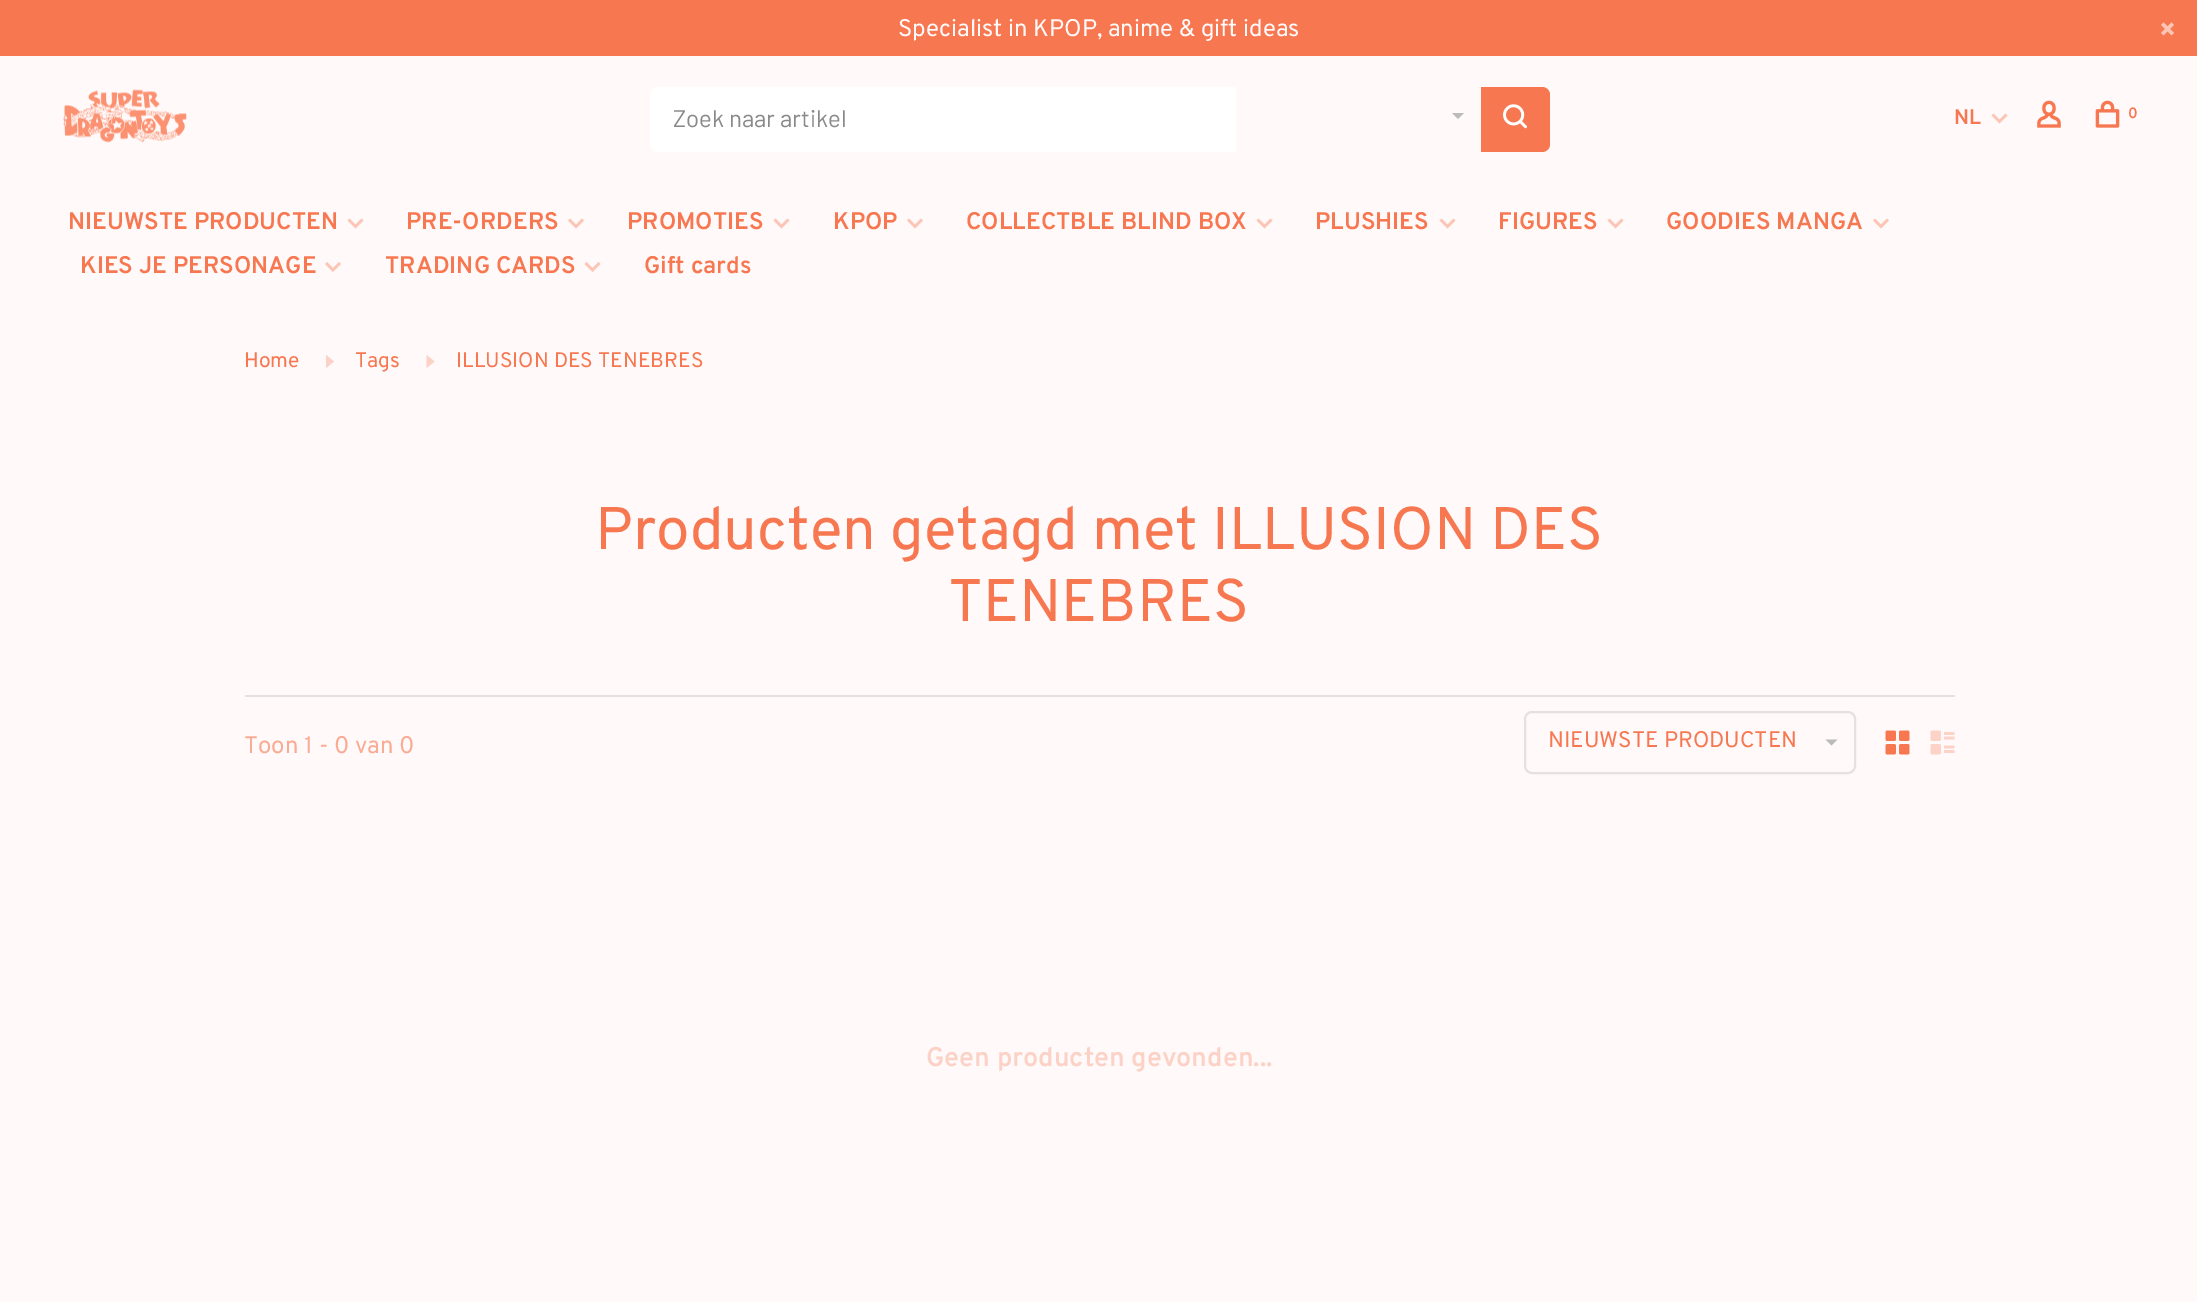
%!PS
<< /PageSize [2197 1302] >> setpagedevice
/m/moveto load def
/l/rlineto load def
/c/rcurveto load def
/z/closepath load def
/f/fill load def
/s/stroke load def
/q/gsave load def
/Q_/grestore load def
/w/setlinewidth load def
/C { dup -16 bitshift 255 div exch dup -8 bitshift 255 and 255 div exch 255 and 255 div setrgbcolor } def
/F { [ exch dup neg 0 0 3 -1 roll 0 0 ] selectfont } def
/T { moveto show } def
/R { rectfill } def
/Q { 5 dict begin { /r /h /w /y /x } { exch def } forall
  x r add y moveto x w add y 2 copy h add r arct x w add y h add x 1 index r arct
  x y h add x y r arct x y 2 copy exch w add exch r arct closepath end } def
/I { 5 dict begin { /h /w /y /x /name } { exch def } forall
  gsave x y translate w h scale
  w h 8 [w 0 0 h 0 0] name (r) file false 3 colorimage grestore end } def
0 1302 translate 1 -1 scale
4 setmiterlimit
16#FFF9F9 C
0 0 2197 1302 R
16#F77750 C
0 0 2197 56 R
/Overpass-Regular 24 F
16#FFF9F9 C
(Specialist in KPOP, anime & gift ideas) 898 36 T
(1.rgb) 2161 22 13 14 I
(2.rgb) 63 89 124 54 I
16#FFFFFF C
658 87 m 578 0 l 0 65 l -578 0 l -4.5 0 -8 -3.5 -8 -8 c 0 -49 l 0 -4.5 3.5 -8 8 -8 c z f
q
674 104 538 28 rectclip
/Barlow-Regular 24 F
16#898989 C
(Zoek naar artikel) 673 127 T
Q_
16#BBBBBB C
1452 113 m 12 0 l -6 6 l z f
16#F77750 C
1481 87 m 61 0 l 4.5 0 8 3.5 8 8 c 0 49 l 0 4.5 -3.5 8 -8 8 c -61 0 l z f
(3.rgb) 1503 104 24 25 I
/Overpass-SemiBold 21 F
(NL) 1954 124 T
(4.rgb) 1991 113 17 11 I
(5.rgb) 2037 100 24 28 I
(6.rgb) 2095 100 25 28 I
/Overpass-SemiBold 15 F
(0) 2128 118 T
/Overpass-SemiBold 24 F
(NIEUWSTE PRODUCTEN) 68 229 T
(4.rgb) 347 218 17 11 I
(PRE-ORDERS) 406 229 T
(7.rgb) 568 218 16 11 I
(PROMOTIES) 627 229 T
(4.rgb) 773 218 17 11 I
(KPOP) 833 229 T
(7.rgb) 907 218 16 11 I
(COLLECTBLE BLIND BOX) 966 229 T
(4.rgb) 1256 218 17 11 I
(PLUSHIES) 1315 229 T
(4.rgb) 1439 218 17 11 I
(FIGURES) 1498 229 T
(4.rgb) 1607 218 17 11 I
(GOODIES MANGA) 1666 229 T
(7.rgb) 1873 218 16 11 I
(KIES JE PERSONAGE) 80 273 T
(8.rgb) 325 262 16 10 I
(TRADING CARDS) 385 273 T
(9.rgb) 584 262 17 10 I
(Gift cards) 644 273 T
/Overpass-Regular 21 F
(Home) 244 367 T
16#FDD2C6 C
326 368 m 8 -6.5 l -8 -6.5 l z f
16#F77750 C
(Tags) 355 367 T
16#FDD2C6 C
426.5 368 m 8 -6.5 l -8 -6.5 l z f
16#F77750 C
(ILLUSION DES TENEBRES) 456 367 T
/Overpass-Regular 60 F
(Producten getagd met ILLUSION DES) 595 549 T
(TENEBRES) 948 621 T
16#E6E0E0 C
245 695 1710 2 R
/Overpass-Regular 24 F
16#FAAB94 C
(Toon 1 - 0 van 0) 244 753 T
16#E6E0E0 C
2 w
1525 712 330 61 7 Q s
/Overpass-Regular 22.5 F
16#F77750 C
(NIEUWSTE PRODUCTEN) 1548 747 T
16#BBBBBB C
1825.5 739.5 m 12 0 l -6 6 l z f
(10.rgb) 1885 730 25 25 I
(11.rgb) 1930 730 25 25 I
/Overpass-SemiBold 27 F
16#FDD2C6 C
(Geen producten gevonden...) 926 1066 T
showpage
